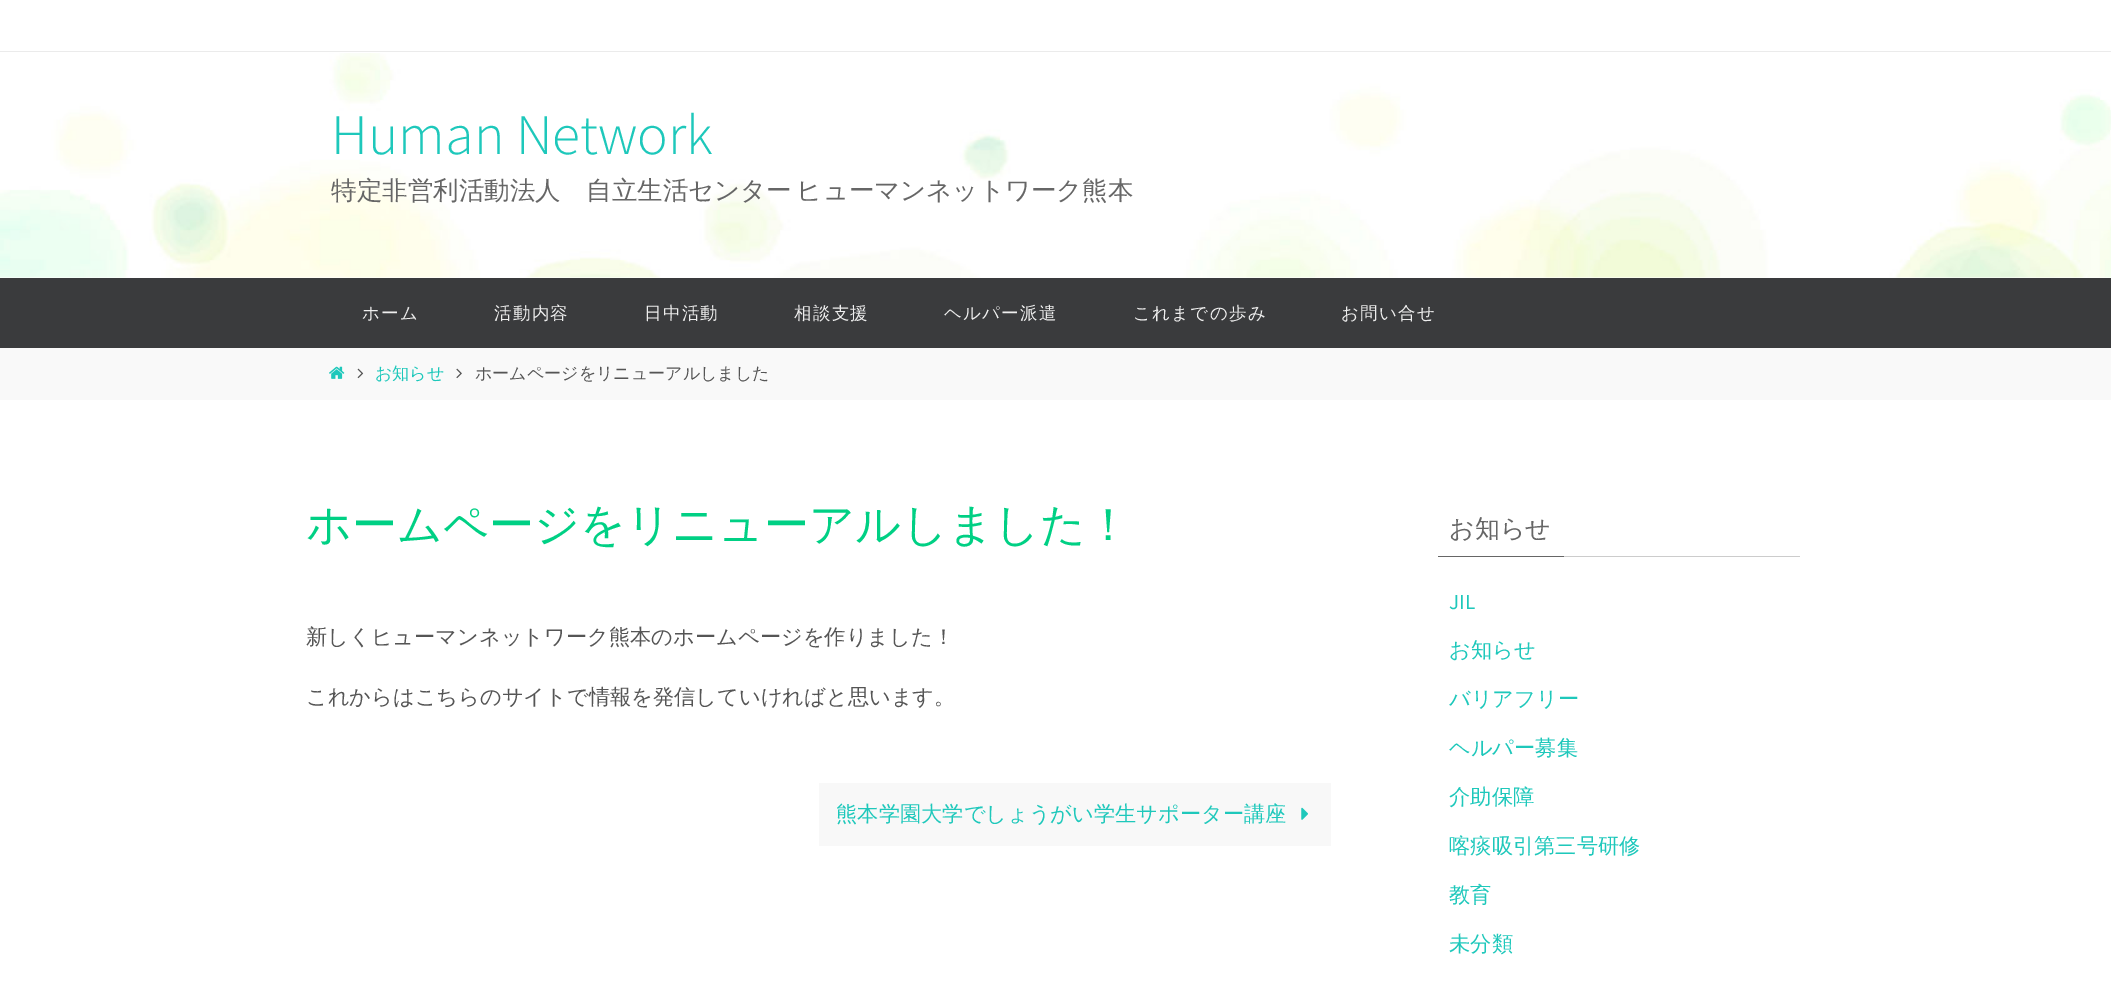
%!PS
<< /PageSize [2111 981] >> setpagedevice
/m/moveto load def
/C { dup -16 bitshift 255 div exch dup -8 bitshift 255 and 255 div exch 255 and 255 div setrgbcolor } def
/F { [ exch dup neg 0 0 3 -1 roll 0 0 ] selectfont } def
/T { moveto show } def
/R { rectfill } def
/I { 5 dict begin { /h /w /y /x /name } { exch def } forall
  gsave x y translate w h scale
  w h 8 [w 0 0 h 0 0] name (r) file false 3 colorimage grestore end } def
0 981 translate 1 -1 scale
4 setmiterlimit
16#FFFFFF C
0 0 2111 981 R
16#EBEBEB C
0 51 2111 1 R
(1.rgb) 0 53 2111 225 I
/SourceSansPro-Light 57.5 F
16#1EC8BB C
(Human Network) 331 154 T
/WenQuanYiZenHei-Medium 25.5 F
16#666666 C
331 199 m -3 0 32 (特定非営利活動法人　自立生活センター ヒューマンネットワーク熊本) widthshow
16#3A3B3D C
0 278 2111 70 R
/WenQuanYiZenHei-Medium 17.5 F
16#EEEEEE C
362 319 m 1.25 0 (ホーム) ashow
494 319 m 1.25 0 (活動内容) ashow
644 319 m 1.25 0 (日中活動) ashow
794 319 m 1.25 0 (相談支援) ashow
944 319 m 1.25 0 (ヘルパー派遣) ashow
1133 319 m 1.25 0 (これまでの歩み) ashow
1341 319 m 1.25 0 (お問い合せ) ashow
16#F9F9F9 C
0 348 2111 52 R
(2.rgb) 329 366 16 13 I
(3.rgb) 357 368 7 11 I
/WenQuanYiZenHei-Medium 17 F
16#1EC8BB C
(お知らせ) 375 379 T
(4.rgb) 456 368 6 11 I
16#555555 C
(ホームページをリニューアルしました) 475 379 T
/WenQuanYiZenHei-Medium 45 F
16#00D084 C
(ホームページをリニューアルしました！) 306 540 T
/WenQuanYiZenHei-Medium 21.25 F
16#555555 C
(新しくヒューマンネットワーク熊本のホームページを作りました！) 306 644 T
(これからはこちらのサイトで情報を発信していければと思います。) 306 704 T
16#F8F8F8 C
819 783 512 63 R
16#1EC8BB C
(熊本学園大学でしょうがい学生サポーター講座) 836 821 T
(5.rgb) 1301 807 7 13 I
16#CCCCCC C
1564 556 236 1 R
16#666666 C
1438 556 126 1 R
/WenQuanYiZenHei-Medium 25 F
(お知らせ) 1449 537 T
/SourceSansPro-Regular 21.25 F
16#1EC8BB C
(JIL) 1449 609 T
/WenQuanYiZenHei-Medium 21.25 F
(お知らせ) 1449 657 T
(バリアフリー) 1449 706 T
(ヘルパー募集) 1449 755 T
(介助保障) 1449 804 T
(喀痰吸引第三号研修) 1449 853 T
(教育) 1449 902 T
(未分類) 1449 951 T
showpage
